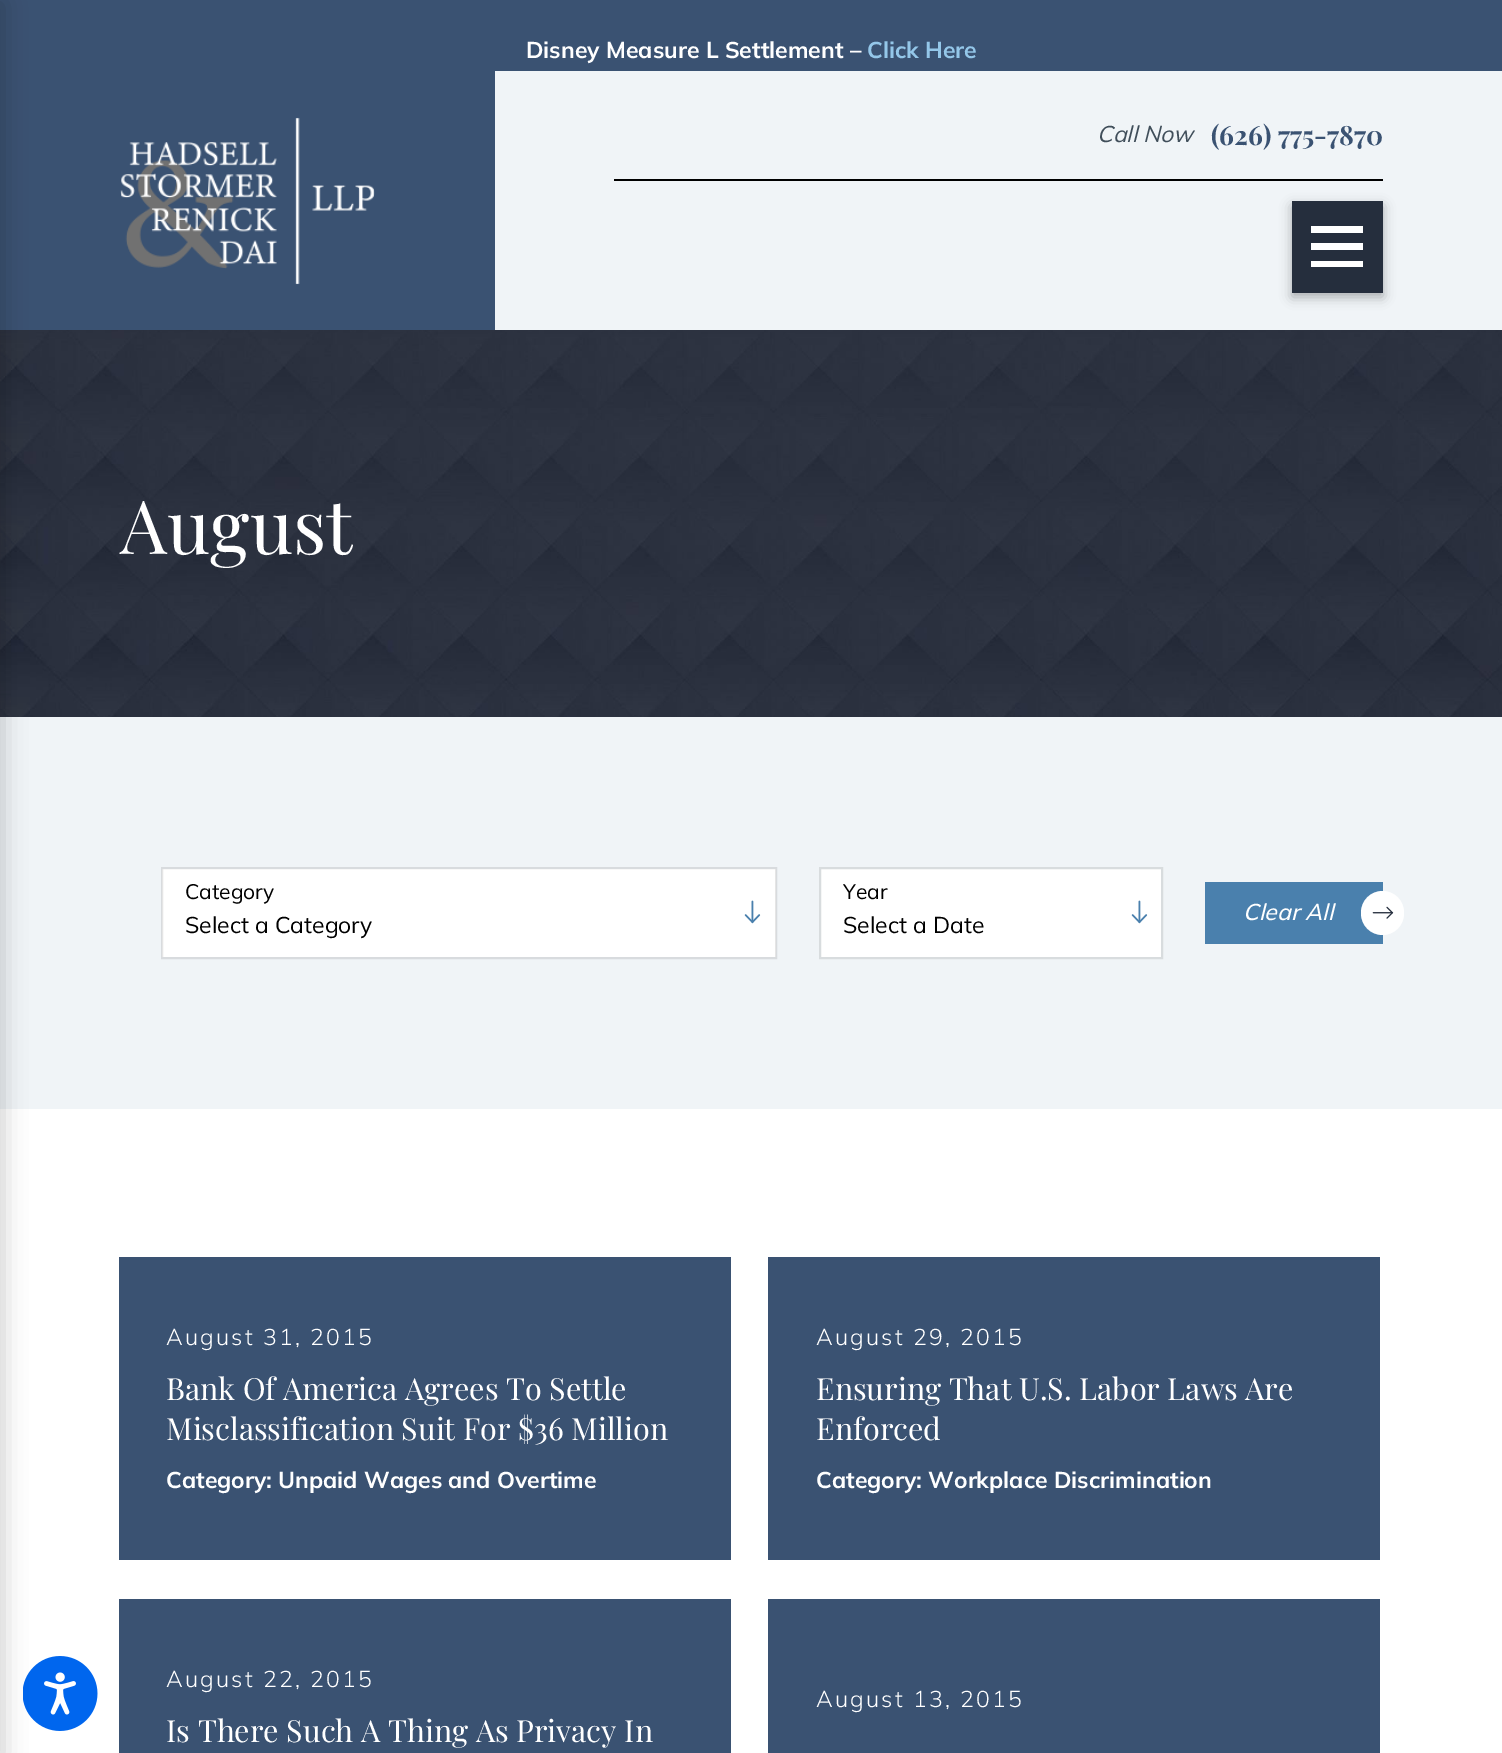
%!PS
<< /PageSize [1502 1753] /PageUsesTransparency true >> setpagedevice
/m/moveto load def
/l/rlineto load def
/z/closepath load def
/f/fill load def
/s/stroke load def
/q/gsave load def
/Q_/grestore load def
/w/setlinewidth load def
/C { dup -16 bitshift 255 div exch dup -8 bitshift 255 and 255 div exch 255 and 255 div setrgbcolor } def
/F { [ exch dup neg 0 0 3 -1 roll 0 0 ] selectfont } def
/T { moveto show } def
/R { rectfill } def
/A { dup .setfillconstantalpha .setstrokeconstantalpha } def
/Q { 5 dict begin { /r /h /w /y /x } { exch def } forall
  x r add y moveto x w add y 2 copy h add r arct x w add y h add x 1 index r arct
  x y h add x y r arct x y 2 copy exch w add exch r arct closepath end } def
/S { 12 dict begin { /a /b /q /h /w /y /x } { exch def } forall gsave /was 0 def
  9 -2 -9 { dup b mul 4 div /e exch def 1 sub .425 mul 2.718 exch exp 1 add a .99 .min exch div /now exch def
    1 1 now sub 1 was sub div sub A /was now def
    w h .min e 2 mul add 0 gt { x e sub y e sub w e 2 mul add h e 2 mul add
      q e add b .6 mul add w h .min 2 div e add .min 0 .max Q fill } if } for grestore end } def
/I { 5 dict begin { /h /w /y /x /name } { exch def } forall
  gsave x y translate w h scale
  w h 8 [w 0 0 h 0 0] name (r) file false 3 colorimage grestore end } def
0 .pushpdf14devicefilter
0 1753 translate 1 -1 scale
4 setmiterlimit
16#FFFFFF C
0 0 1502 1753 R
16#3A5272 C
0 0 1502 71 R
/Mulish-Bold 22.9 F
16#FFFFFF C
(Disney Measure L Settlement –) 526 58 T
16#94C7E9 C
(Click Here) 867 58 T
16#3A5272 C
0 71 495 259 R
(1.rgb) 120 117 255 168 I
16#F0F4F7 C
495 71 1007 259 R
16#000000 C
614 179 769 2 R
(2.rgb) 23 1656 75 75 I
(3.rgb) 0 330 1502 387 I
16#F0F4F7 C
0 717 1502 392 R
16#000000 C
-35 3 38 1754 0 11.5 .2 S
1292 206 91 91 0 6 .3 S
16#252E3D C
1292 201 91 92 R
16#FFFFFF C
1311 226 m 0 7 l 52 0 l 0 -7 l z 1311 243 m 0 7 l 52 0 l 0 -7 l z 1311 261 m 0 6 l 52 0 l 0 -6 l z f
/Mulish-Italic 22.9 F
16#404E5A C
(Call Now) 1097 142 T
/PlayfairDisplay-Bold 26.5 F
16#3A5272 C
(\(626\) 775-7870) 1211 145 T
/PlayfairDisplay-Regular 74.5 F
16#FFFFFF C
(August) 120 554 T
162 869 614 88 R
0.1 A
16#000000 C
2 w
162 868 614 90 rectstroke
/Mulish-Regular 21 F
1 A
(Category) 185 899 T
(4.rgb) 744 900 17 24 I
/Mulish-Regular 22.9 F
(Select a Category) 185 933 T
16#FFFFFF C
820 868 m 342 0 l 0 90 l -342 0 l z q f Q_
16#D8DCDE C
s
/Mulish-Regular 21 F
16#000000 C
(Year) 843 899 T
/Mulish-Regular 22.9 F
(Select a Date) 843 933 T
(4.rgb) 1131 900 17 24 I
16#4A80AD C
1205 882 178 62 R
/Mulish-MediumItalic 22.9 F
16#FFFFFF C
(Clear All) 1243 920 T
1361 891 43 44 21.5 Q f
(5.rgb) 1372 906 22 13 I
16#3A5272 C
119 1257 612 303 R
/Mulish-Light 22.9 F
16#FFFFFF C
166 1345 m 2.25 0 (August 31, 2015) ashow
/PlayfairDisplay-Regular 30.5 F
(Bank Of America Agrees To Settle) 166 1400 T
(Misclassification Suit For $36 Million) 166 1440 T
/Mulish-Bold 22.9 F
(Category: Unpaid Wages and Overtime) 166 1488 T
16#3A5272 C
768 1257 612 303 R
/Mulish-Light 22.9 F
16#FFFFFF C
816 1345 m 2.25 0 (August 29, 2015) ashow
/PlayfairDisplay-Regular 30.5 F
(Ensuring That U.S. Labor Laws Are) 816 1400 T
(Enforced) 816 1440 T
/Mulish-Bold 22.9 F
(Category: Workplace Discrimination) 816 1488 T
16#3A5272 C
119 1599 612 154 R
/Mulish-Light 22.9 F
16#FFFFFF C
166 1687 m 2.25 0 (August 22, 2015) ashow
/PlayfairDisplay-Regular 30.5 F
(Is There Such A Thing As Privacy In) 166 1742 T
16#3A5272 C
768 1599 612 154 R
/Mulish-Light 22.9 F
16#FFFFFF C
816 1707 m 2.25 0 (August 13, 2015) ashow
.poppdf14devicefilter showpage
